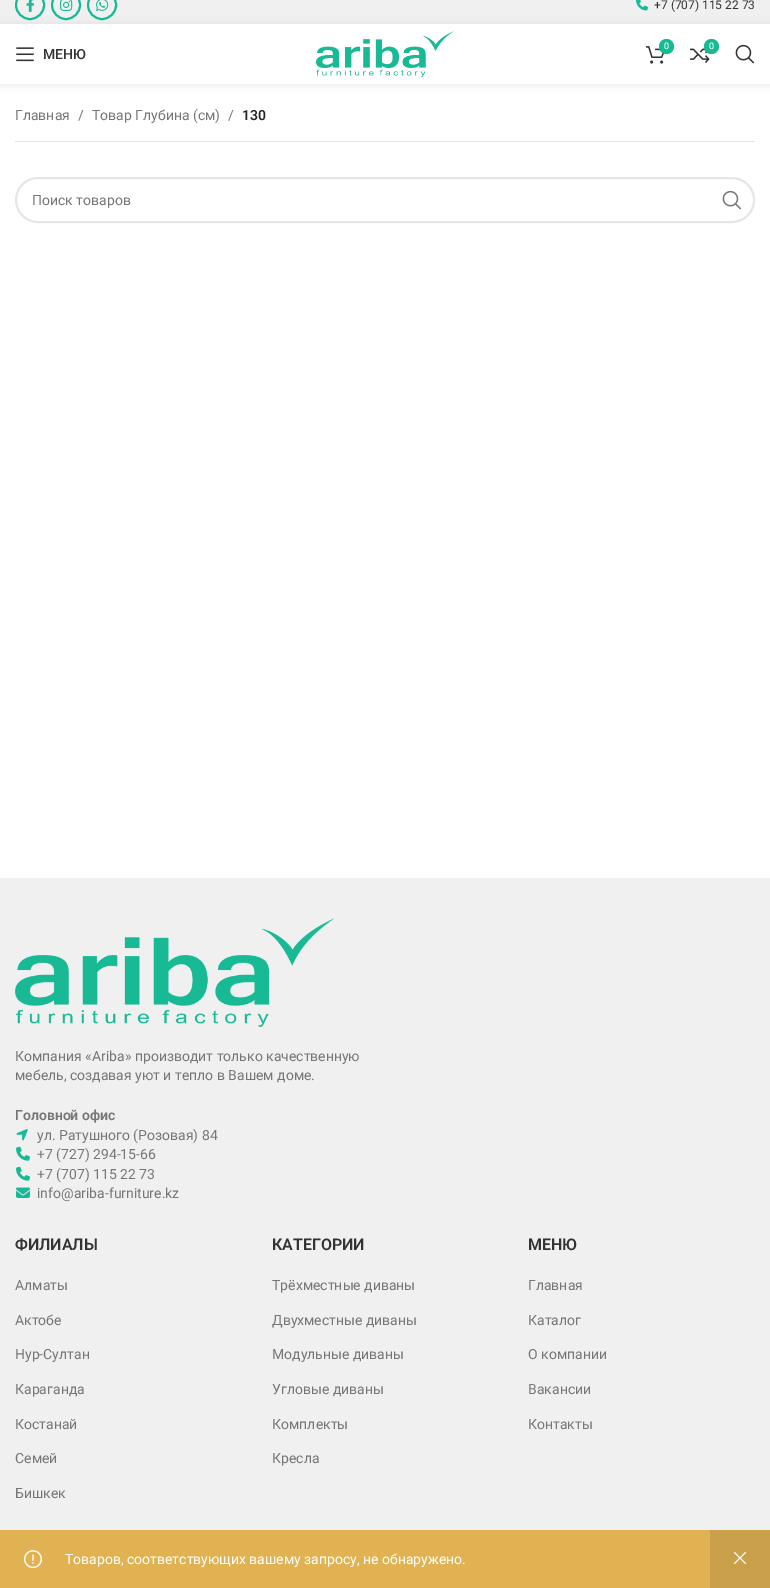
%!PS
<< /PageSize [770 1588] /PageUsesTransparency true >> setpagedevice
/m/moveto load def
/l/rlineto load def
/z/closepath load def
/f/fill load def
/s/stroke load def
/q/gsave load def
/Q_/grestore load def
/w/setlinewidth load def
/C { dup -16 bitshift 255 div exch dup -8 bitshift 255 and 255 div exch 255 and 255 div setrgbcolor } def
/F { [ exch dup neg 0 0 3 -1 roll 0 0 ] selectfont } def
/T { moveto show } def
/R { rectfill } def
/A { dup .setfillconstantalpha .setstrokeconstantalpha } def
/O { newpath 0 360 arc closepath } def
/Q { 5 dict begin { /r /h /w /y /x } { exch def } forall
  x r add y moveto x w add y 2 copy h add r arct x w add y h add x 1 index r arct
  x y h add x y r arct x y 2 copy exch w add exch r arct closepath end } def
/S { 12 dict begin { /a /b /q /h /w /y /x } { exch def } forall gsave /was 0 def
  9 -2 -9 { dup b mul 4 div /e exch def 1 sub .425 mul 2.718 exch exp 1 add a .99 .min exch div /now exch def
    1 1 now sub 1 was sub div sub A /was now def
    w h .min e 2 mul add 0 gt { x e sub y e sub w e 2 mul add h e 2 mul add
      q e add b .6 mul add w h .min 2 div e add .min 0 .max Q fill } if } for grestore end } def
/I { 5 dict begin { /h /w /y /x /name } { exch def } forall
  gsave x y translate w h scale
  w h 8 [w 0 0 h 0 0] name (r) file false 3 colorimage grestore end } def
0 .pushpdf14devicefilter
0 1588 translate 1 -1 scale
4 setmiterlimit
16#FFFFFF C
0 0 770 1588 R
16#F0F0F1 C
0 0 770 24 R
q
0 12 m 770 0 l 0 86 l -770 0 l z 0 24 m 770 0 l 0 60 l -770 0 l z eoclip newpath
16#000000 C
0 25 770 60 0 4 .1 S
Q_
16#18BA95 C
2 w
30 5 14 O s
(1.rgb) 26 0 9 12 I
66 5 14 O s
(2.rgb) 60 0 13 11 I
102 5 14 O s
(3.rgb) 96 0 13 11 I
(4.rgb) 636 0 12 11 I
/Roboto-Regular 12 F
16#333333 C
(+7 \(707\) 115 22 73) 654 9 T
(5.rgb) 316 31 138 46 I
(6.rgb) 646 46 19 18 I
16#18BA95 C
666.5 46.5 7.5 O f
/Roboto-Regular 9 F
16#FFFFFF C
(0) 664 49 T
(7.rgb) 690 48 20 15 I
16#18BA95 C
711.5 46.5 7.5 O f
16#FFFFFF C
(0) 709 49 T
(8.rgb) 735 44 20 20 I
(9.rgb) 16 47 18 15 I
/Roboto-Medium 14 F
16#333333 C
(МЕНЮ) 43 59 T
16#E4E4E4 C
15 141 740 1 R
/Roboto-Regular 14 F
16#767676 C
(Главная) 15 120 T
(/) 78 120 T
(Товар Глубина \(см\)) 92 120 T
(/) 228 120 T
/Roboto-SemiBold 14 F
16#242424 C
(130) 242 120 T
16#E6E6E6 C
16 178 738 44 22 Q s
/Roboto-Regular 14 F
16#767676 C
(Поиск товаров) 32 205 T
(10.rgb) 722 190 20 20 I
16#E0B252 C
0 1530 710 58 R
(11.rgb) 24 1550 18 19 I
16#FFFFFF C
(Товаров, соответствующих вашему запросу, не обнаружено.) 65 1564 T
16#CAA04A C
710 1530 60 58 R
(12.rgb) 733 1551 14 14 I
16#F0F0F1 C
0 878 770 652 R
(13.rgb) 15 918 320 109 I
16#767676 C
(Компания «Ariba» производит только качественную) 15 1061 T
(мебель, создавая уют и тепло в Вашем доме.) 15 1080 T
/Roboto-SemiBold 14 F
(Головной офис) 15 1120 T
(14.rgb) 16 1129 12 12 I
/Roboto-Regular 14 F
(ул. Ратушного \(Розовая\) 84) 37 1140 T
(15.rgb) 16 1146 14 15 I
(+7 \(727\) 294-15-66) 37 1159 T
(15.rgb) 16 1166 14 15 I
(+7 \(707\) 115 22 73) 37 1179 T
(16.rgb) 16 1187 14 11 I
(info@ariba-furniture.kz) 37 1198 T
/Roboto-SemiBold 16 F
16#333333 C
(ФИЛИАЛЫ) 15 1250 T
/Roboto-Regular 14 F
16#767676 C
(Алматы) 15 1290 T
(Актобе) 15 1325 T
(Нур-Султан) 15 1359 T
(Караганда) 15 1394 T
(Костанай) 15 1429 T
(Семей) 15 1463 T
(Бишкек) 15 1498 T
/Roboto-SemiBold 16 F
16#333333 C
(КАТЕГОРИИ) 272 1250 T
/Roboto-Regular 14 F
16#767676 C
(Трёхместные диваны) 272 1290 T
(Двухместные диваны) 272 1325 T
(Модульные диваны) 272 1359 T
(Угловые диваны) 272 1394 T
(Комплекты) 272 1429 T
(Кресла) 272 1463 T
/Roboto-SemiBold 16 F
16#333333 C
(МЕНЮ) 528 1250 T
/Roboto-Regular 14 F
16#767676 C
(Главная) 528 1290 T
(Каталог) 528 1325 T
(О компании) 528 1359 T
(Вакансии) 528 1394 T
(Контакты) 528 1429 T
.poppdf14devicefilter showpage
